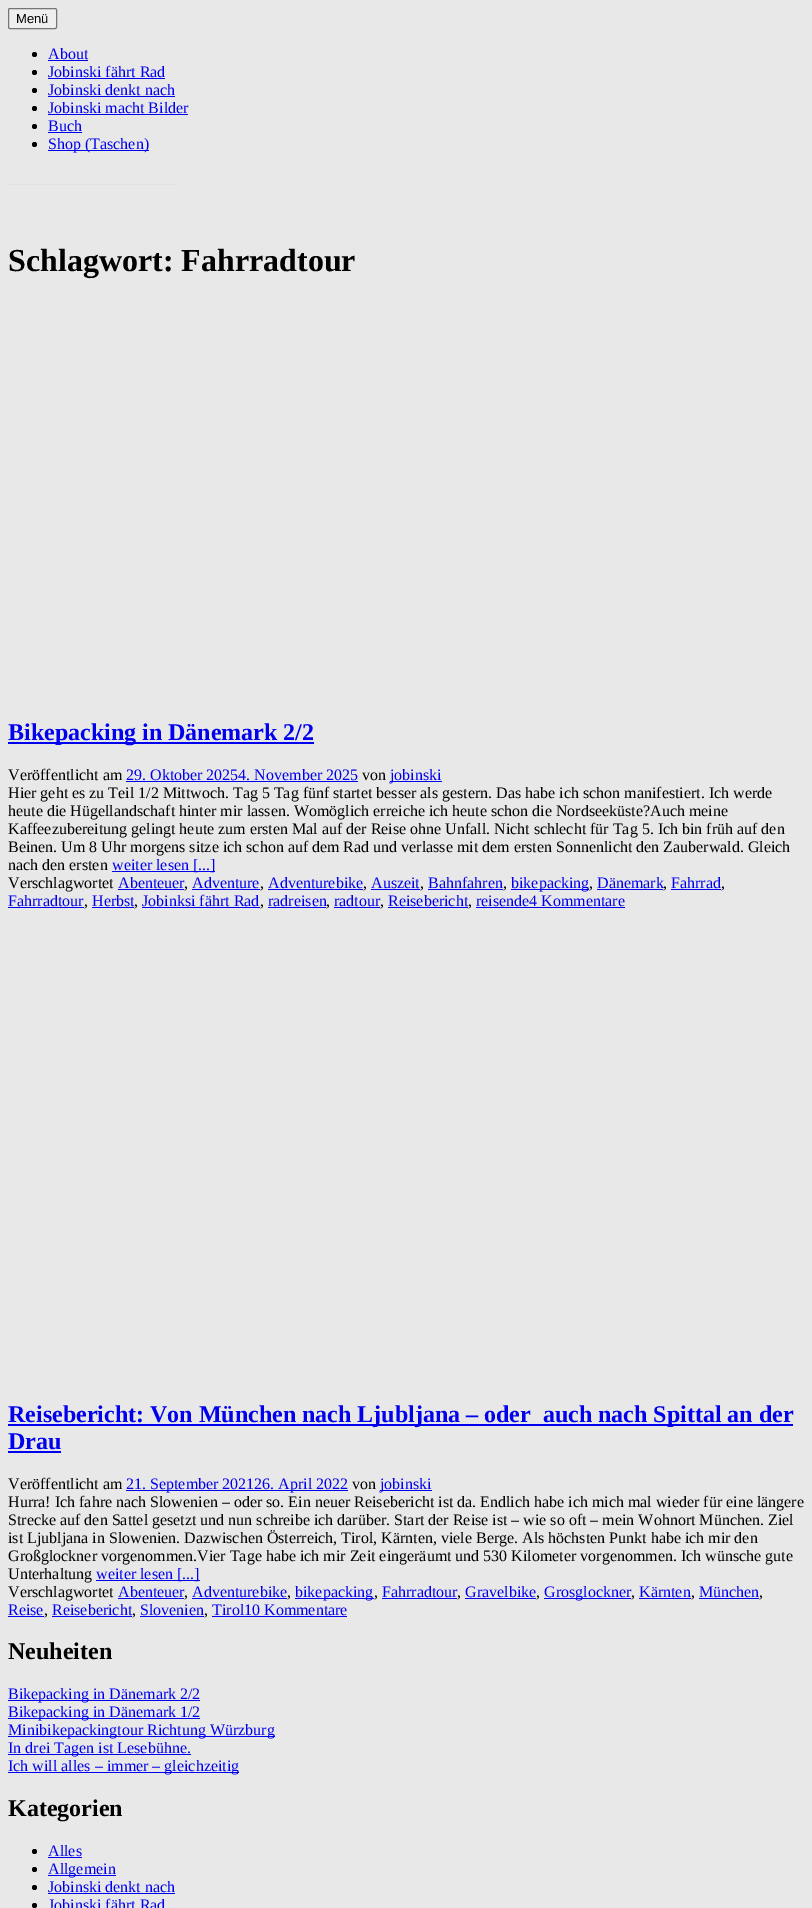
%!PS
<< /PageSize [812 1908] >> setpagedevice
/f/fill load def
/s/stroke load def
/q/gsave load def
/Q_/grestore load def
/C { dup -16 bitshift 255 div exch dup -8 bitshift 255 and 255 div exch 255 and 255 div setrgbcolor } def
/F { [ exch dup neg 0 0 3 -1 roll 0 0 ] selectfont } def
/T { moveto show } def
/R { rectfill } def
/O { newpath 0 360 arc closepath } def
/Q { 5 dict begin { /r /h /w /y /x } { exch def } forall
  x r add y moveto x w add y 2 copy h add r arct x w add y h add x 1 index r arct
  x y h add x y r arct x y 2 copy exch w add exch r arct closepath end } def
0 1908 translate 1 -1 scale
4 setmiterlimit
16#E8E8E8 C
0 0 812 1908 R
16#EFEFEF C
8.5 8.5 48 20 1.5 Q q f Q_
16#767676 C
s
/LiberationSans-Regular 13 F
16#000000 C
(Menü) 16 23 T
34.5 54.5 2.5 O f
/LiberationSerif-Regular 16 F
16#0000EE C
(About) 48 59 T
48 60 40 1 R
16#000000 C
34.5 72.5 2.5 O f
16#0000EE C
(Jobinski fährt Rad) 48 77 T
48 78 117 1 R
16#000000 C
34.5 90.5 2.5 O f
16#0000EE C
(Jobinski denkt nach) 48 95 T
48 96 127 1 R
16#000000 C
34.5 108.5 2.5 O f
16#0000EE C
(Jobinski macht Bilder) 48 113 T
48 114 140 1 R
16#000000 C
34.5 126.5 2.5 O f
16#0000EE C
(Buch) 48 131 T
48 132 34 1 R
16#000000 C
34.5 144.5 2.5 O f
16#0000EE C
48 150 101 1 R
(Shop \(Taschen\)) 48 149 T
16#E0E0E0 C
8 184 168 1 R
/LiberationSerif-Bold 32 F
16#000000 C
(Schlagwort: Fahrradtour) 8 271 T
16#0000EE C
8 742 306 2 R
/LiberationSerif-Bold 24 F
(Bikepacking in Dänemark 2/2) 8 740 T
/LiberationSerif-Regular 16 F
16#000000 C
(Veröffentlicht am) 8 780 T
16#0000EE C
(29. Oktober 20254. November 2025) 126 780 T
126 781 232 1 R
16#000000 C
(von) 362 780 T
16#0000EE C
390 781 52 1 R
(jobinski) 390 780 T
16#000000 C
(Hier geht es zu Teil 1/2 Mittwoch. Tag 5 Tag fünf startet besser als gestern. Das habe ich schon manifestiert. Ich werde) 8 798 T
(heute die Hügellandschaft hinter mir lassen. Womöglich erreiche ich heute schon die Nordseeküste?Auch meine) 8 816 T
(Kaffeezubereitung gelingt heute zum ersten Mal auf der Reise ohne Unfall. Nicht schlecht für Tag 5. Ich bin früh auf den) 8 834 T
(Beinen. Um 8 Uhr morgens sitze ich schon auf dem Rad und verlasse mit dem ersten Sonnenlicht den Zauberwald. Gleich) 8 852 T
(nach den ersten) 8 870 T
16#0000EE C
112 871 103 1 R
(weiter lesen [...]) 112 870 T
16#000000 C
(Verschlagwortet) 8 888 T
16#0000EE C
(Abenteuer) 118 888 T
16#000000 C
(,) 184 888 T
16#0000EE C
118 889 66 1 R
(Adventure) 192 888 T
16#000000 C
(,) 260 888 T
16#0000EE C
192 889 68 1 R
(Adventurebike) 268 888 T
16#000000 C
(,) 363 888 T
16#0000EE C
268 889 95 1 R
(Auszeit) 371 888 T
16#000000 C
(,) 420 888 T
16#0000EE C
371 889 49 1 R
(Bahnfahren) 428 888 T
16#000000 C
(,) 503 888 T
16#0000EE C
428 889 75 1 R
511 889 78 1 R
(bikepacking) 511 888 T
16#000000 C
(,) 589 888 T
16#0000EE C
(Dänemark) 597 888 T
16#000000 C
(,) 663 888 T
16#0000EE C
597 889 66 1 R
(Fahrrad) 671 888 T
16#000000 C
(,) 721 888 T
16#0000EE C
671 889 50 1 R
(Fahrradtour) 8 906 T
16#000000 C
(,) 84 906 T
16#0000EE C
8 907 76 1 R
(Herbst) 92 906 T
16#000000 C
(,) 134 906 T
16#0000EE C
92 907 42 1 R
(Jobinksi fährt Rad) 142 906 T
16#000000 C
(,) 260 906 T
16#0000EE C
142 907 118 1 R
(radreisen) 268 906 T
16#000000 C
(,) 326 906 T
16#0000EE C
268 907 58 1 R
(radtour) 334 906 T
16#000000 C
(,) 380 906 T
16#0000EE C
334 907 46 1 R
(Reisebericht) 388 906 T
16#000000 C
(,) 468 906 T
16#0000EE C
388 907 80 1 R
476 907 149 1 R
(reisende4 Kommentare) 476 906 T
8 1424 785 2 R
/LiberationSerif-Bold 24 F
(Reisebericht: Von München nach Ljubljana – oder  auch nach Spittal an der) 8 1422 T
(Drau) 8 1449 T
8 1451 53 2 R
/LiberationSerif-Regular 16 F
16#000000 C
(Veröffentlicht am) 8 1489 T
16#0000EE C
126 1490 222 1 R
(21. September 202126. April 2022) 126 1489 T
16#000000 C
(von) 352 1489 T
16#0000EE C
380 1490 52 1 R
(jobinski) 380 1489 T
16#000000 C
(Hurra! Ich fahre nach Slowenien – oder so. Ein neuer Reisebericht ist da. Endlich habe ich mich mal wieder für eine längere) 8 1507 T
(Strecke auf den Sattel gesetzt und nun schreibe ich darüber. Start der Reise ist – wie so oft – mein Wohnort München. Ziel) 8 1525 T
(ist Ljubljana in Slowenien. Dazwischen Österreich, Tirol, Kärnten, viele Berge. Als höchsten Punkt habe ich mir den) 8 1543 T
(Großglockner vorgenommen.Vier Tage habe ich mir Zeit eingeräumt und 530 Kilometer vorgenommen. Ich wünsche gute) 8 1561 T
(Unterhaltung) 8 1579 T
16#0000EE C
96 1580 104 1 R
(weiter lesen [...]) 96 1579 T
16#000000 C
(Verschlagwortet) 8 1597 T
16#0000EE C
(Abenteuer) 118 1597 T
16#000000 C
(,) 184 1597 T
16#0000EE C
118 1598 66 1 R
(Adventurebike) 192 1597 T
16#000000 C
(,) 287 1597 T
16#0000EE C
192 1598 95 1 R
295 1598 79 1 R
(bikepacking) 295 1597 T
16#000000 C
(,) 374 1597 T
16#0000EE C
(Fahrradtour) 382 1597 T
16#000000 C
(,) 457 1597 T
16#0000EE C
382 1598 75 1 R
(Gravelbike) 465 1597 T
16#000000 C
(,) 536 1597 T
16#0000EE C
465 1598 71 1 R
544 1598 87 1 R
(Grosglockner) 544 1597 T
16#000000 C
(,) 631 1597 T
16#0000EE C
(Kärnten) 639 1597 T
16#000000 C
(,) 691 1597 T
16#0000EE C
639 1598 52 1 R
(München) 699 1597 T
16#000000 C
(,) 759 1597 T
16#0000EE C
699 1598 60 1 R
(Reise) 8 1615 T
16#000000 C
(,) 44 1615 T
16#0000EE C
8 1616 36 1 R
(Reisebericht) 52 1615 T
16#000000 C
(,) 132 1615 T
16#0000EE C
52 1616 80 1 R
(Slovenien) 140 1615 T
16#000000 C
(,) 204 1615 T
16#0000EE C
140 1616 64 1 R
212 1616 135 1 R
(Tirol10 Kommentare) 212 1615 T
/LiberationSerif-Bold 24 F
16#000000 C
(Neuheiten) 8 1659 T
16#0000EE C
8 1700 192 1 R
/LiberationSerif-Regular 16 F
(Bikepacking in Dänemark 2/2) 8 1699 T
8 1718 192 1 R
(Bikepacking in Dänemark 1/2) 8 1717 T
8 1736 267 1 R
(Minibikepackingtour Richtung Würzburg) 8 1735 T
8 1754 183 1 R
(In drei Tagen ist Lesebühne.) 8 1753 T
8 1772 231 1 R
(Ich will alles – immer – gleichzeitig) 8 1771 T
/LiberationSerif-Bold 24 F
16#000000 C
(Kategorien) 8 1816 T
34.5 1851.5 2.5 O f
/LiberationSerif-Regular 16 F
16#0000EE C
(Alles) 48 1856 T
48 1857 34 1 R
16#000000 C
34.5 1869.5 2.5 O f
16#0000EE C
48 1875 68 1 R
(Allgemein) 48 1874 T
16#000000 C
34.5 1887.5 2.5 O f
16#0000EE C
(Jobinski denkt nach) 48 1892 T
48 1893 127 1 R
16#000000 C
34.5 1905.5 2.5 O f
16#0000EE C
(Jobinski fährt Rad) 48 1910 T
showpage
